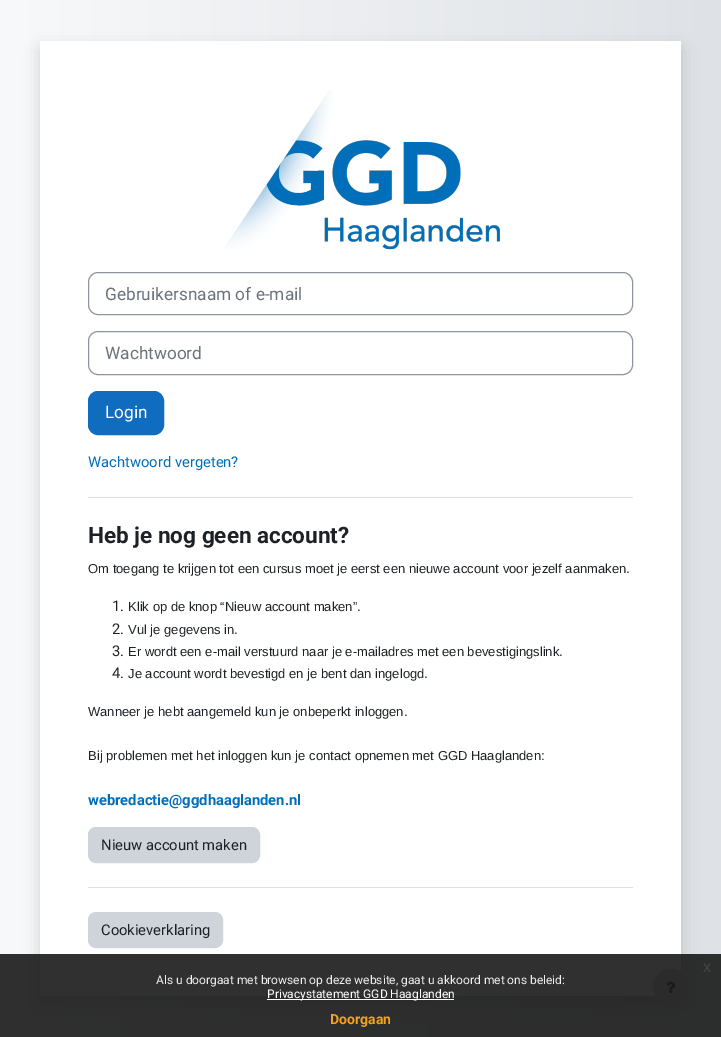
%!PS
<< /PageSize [721 1037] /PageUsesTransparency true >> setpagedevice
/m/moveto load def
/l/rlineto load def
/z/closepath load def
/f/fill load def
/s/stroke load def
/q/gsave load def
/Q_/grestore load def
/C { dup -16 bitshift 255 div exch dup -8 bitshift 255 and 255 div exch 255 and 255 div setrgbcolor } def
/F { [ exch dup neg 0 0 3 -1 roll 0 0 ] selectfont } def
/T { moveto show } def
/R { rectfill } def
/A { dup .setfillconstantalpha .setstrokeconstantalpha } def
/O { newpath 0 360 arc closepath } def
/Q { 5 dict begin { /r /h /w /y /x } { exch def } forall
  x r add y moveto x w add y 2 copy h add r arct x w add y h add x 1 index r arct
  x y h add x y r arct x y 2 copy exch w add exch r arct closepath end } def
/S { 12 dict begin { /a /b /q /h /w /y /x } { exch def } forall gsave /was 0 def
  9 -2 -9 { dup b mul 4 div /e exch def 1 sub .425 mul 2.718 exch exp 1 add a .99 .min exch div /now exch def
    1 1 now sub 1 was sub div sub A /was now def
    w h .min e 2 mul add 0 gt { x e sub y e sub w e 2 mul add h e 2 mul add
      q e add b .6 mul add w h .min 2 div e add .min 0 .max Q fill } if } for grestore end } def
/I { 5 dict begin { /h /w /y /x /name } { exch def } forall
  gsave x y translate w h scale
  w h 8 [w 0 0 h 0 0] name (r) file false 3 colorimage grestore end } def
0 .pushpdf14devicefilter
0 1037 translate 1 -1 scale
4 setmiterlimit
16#FFFFFF C
0 0 721 1037 R
q 0 0 m 721 0 l 0 1037 l -721 0 l z clip newpath
<< /ShadingType 2 /ColorSpace /DeviceRGB /Coords [0 519 721 519] /Extend [true true] /Function << /FunctionType 2 /Domain [0 1] /C0 [.973 .976 .98] /C1 [.871 .886 .902] /N 1 >> >> shfill Q_
16#000000 C
40 49 641 955 0 8 .15 S
16#FFFFFF C
40 41 641 955 R
(1.rgb) 223 90 277 160 I
16#8F959E C
88.5 272.5 544 42 9.5 Q s
/Roboto-Regular 17.25 F
16#6A737B C
(Gebruikersnaam of e-mail) 105 300 T
16#8F959E C
88.5 331.5 544 43 9.5 Q s
16#6A737B C
(Wachtwoord) 105 359 T
16#0F6CBF C
88.5 391.5 75 43 9.5 Q q f Q_
s
16#FFFFFF C
(Login) 105 418 T
/Roboto-Regular 14.75 F
16#006FBA C
(Wachtwoord vergeten?) 88 467 T
16#DEE2E6 C
88 497 545 1 R
/Roboto-Bold 22.5 F
16#1D2125 C
(Heb je nog geen account?) 88 543 T
/LiberationSans-Regular 13 F
(Om toegang te krijgen tot een cursus moet je eerst een nieuwe account voor jezelf aanmaken.) 88 573 T
/Roboto-Regular 14.75 F
(1.) 112 611 T
/LiberationSans-Regular 13 F
(Klik op de knop “Nieuw account maken”.) 128 611 T
/Roboto-Regular 14.75 F
(2.) 112 634 T
/LiberationSans-Regular 13 F
(Vul je gegevens in.) 128 634 T
/Roboto-Regular 14.75 F
(3.) 112 656 T
/LiberationSans-Regular 13 F
(Er wordt een e-mail verstuurd naar je e-mailadres met een bevestigingslink.) 128 656 T
/Roboto-Regular 14.75 F
(4.) 112 678 T
/LiberationSans-Regular 13 F
(Je account wordt bevestigd en je bent dan ingelogd.) 128 678 T
(Wanneer je hebt aangemeld kun je onbeperkt inloggen.) 88 716 T
(Bij problemen met het inloggen kun je contact opnemen met GGD Haaglanden:) 88 760 T
/Roboto-Bold 14.75 F
16#006FBA C
(webredactie@ggdhaaglanden.nl) 88 805 T
16#CED4DA C
88.5 827.5 171 35 7.5 Q q f Q_
s
/Roboto-Regular 14.75 F
16#1D2125 C
(Nieuw account maken) 101 850 T
16#DEE2E6 C
88 887 545 1 R
16#CED4DA C
88.5 912.5 134 35 7.5 Q q f Q_
s
16#1D2125 C
(Cookieverklaring) 101 935 T
16#CED4DA C
671 987 18 O f
(2.rgb) 666 981 10 12 I
0.9 A
16#191919 C
0 954 721 83 R
/LiberationSans-Regular 16 F
1 A
16#444545 C
(x) 703 972 T
/Roboto-Regular 12 F
16#EFEFEF C
(Als u doorgaat met browsen op deze website, gaat u akkoord met ons beleid:) 156 984 T
16#FFFFFF C
267 999 187 1 R
(Privacystatement GGD Haaglanden) 267 998 T
/Roboto-Bold 14 F
16#F6A21D C
(Doorgaan) 330 1024 T
.poppdf14devicefilter showpage
